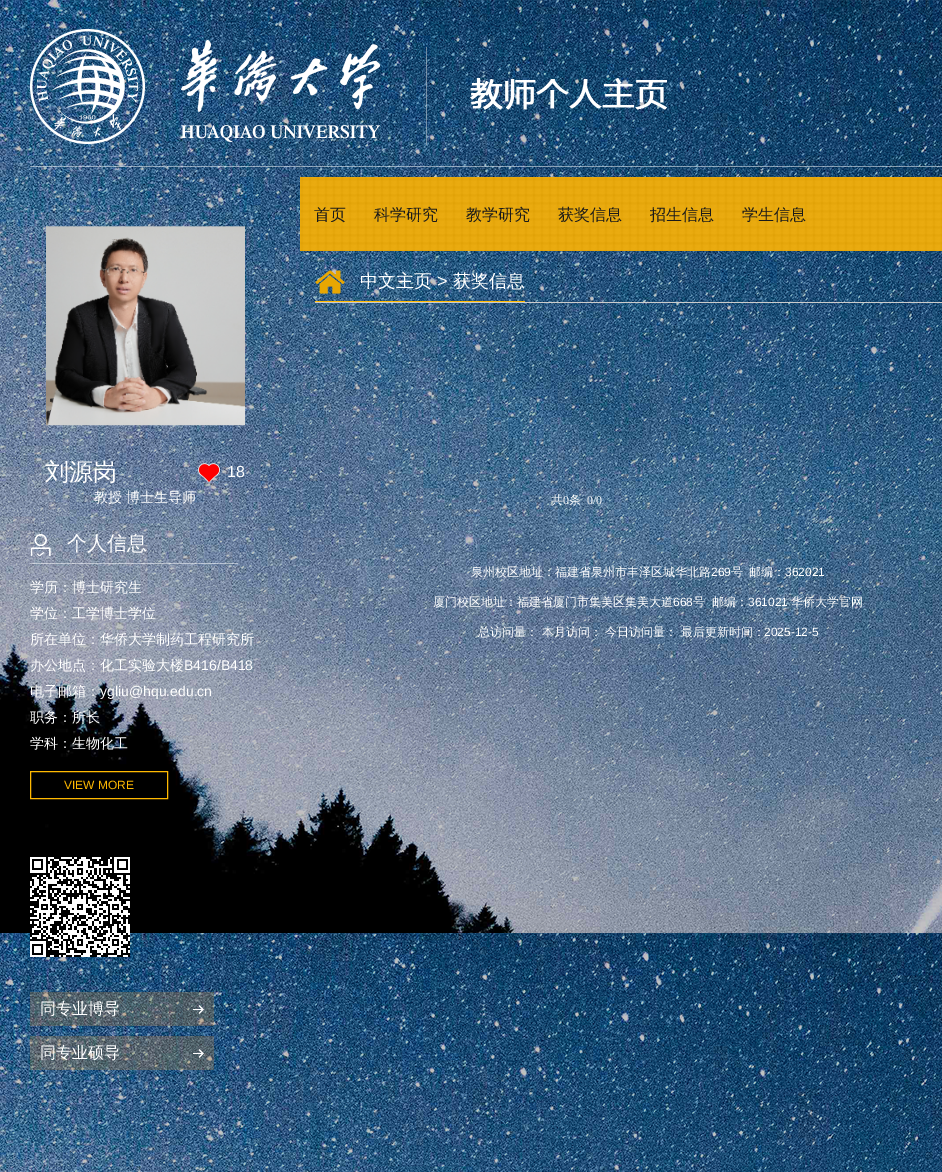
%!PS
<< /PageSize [942 1172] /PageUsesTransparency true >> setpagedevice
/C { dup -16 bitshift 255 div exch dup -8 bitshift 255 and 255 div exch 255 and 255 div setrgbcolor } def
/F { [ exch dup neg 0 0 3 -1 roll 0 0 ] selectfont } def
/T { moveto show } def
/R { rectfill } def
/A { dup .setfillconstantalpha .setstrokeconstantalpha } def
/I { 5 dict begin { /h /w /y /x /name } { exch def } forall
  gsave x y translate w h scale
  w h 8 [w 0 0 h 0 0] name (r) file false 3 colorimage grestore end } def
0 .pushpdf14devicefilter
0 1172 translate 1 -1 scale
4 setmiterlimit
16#FFFFFF C
0 0 942 1172 R
(1.rgb) 0 0 942 1172 I
0.5 A
30 166 912 1 R
1 A
(2.rgb) 30 29 637 116 I
(3.rgb) 46 226 199 200 I
/WenQuanYiZenHei-Medium 24 F
(刘源岗) 45 480 T
(4.rgb) 198 463 22 20 I
/LiberationSans-Regular 16 F
(18) 227 477 T
/WenQuanYiZenHei-Medium 14 F
(教授) 94 502 T
(博士生导师) 126 502 T
0.5 A
30 563 208 1 R
1 A
(5.rgb) 31 534 20 22 I
/WenQuanYiZenHei-Medium 20 F
(个人信息) 67 550 T
/WenQuanYiZenHei-Medium 14 F
(学历：博士研究生) 30 592 T
(学位：工学博士学位) 30 618 T
(所在单位：华侨大学制药工程研究所) 30 644 T
(办公地点：化工实验大楼) 30 670 T
/LiberationSans-Regular 14 F
(B416/B418) 184 670 T
/WenQuanYiZenHei-Medium 14 F
(电子邮箱：) 30 696 T
/LiberationSans-Regular 14 F
(ygliu@hqu.edu.cn) 100 696 T
/WenQuanYiZenHei-Medium 14 F
(职务：所长) 30 722 T
(学科：生物化工) 30 748 T
16#FFB901 C
30.5 771.5 137 27 rectstroke
/LiberationSans-Regular 12 F
(VIEW MORE) 64 789 T
(6.rgb) 30 857 100 100 I
0.3 A
16#BE8542 C
30 992 184 34 R
/WenQuanYiZenHei-Medium 16 F
1 A
16#FFFFFF C
(同专业博导) 40 1014 T
(7.rgb) 193 1005 11 9 I
0.3 A
16#BE8542 C
30 1036 184 34 R
1 A
16#FFFFFF C
(同专业硕导) 40 1058 T
(8.rgb) 193 1049 11 9 I
(9.rgb) 300 177 642 74 I
16#1A1A1A C
(首页) 314 220 T
(科学研究) 374 220 T
(教学研究) 466 220 T
(获奖信息) 558 220 T
(招生信息) 650 220 T
(学生信息) 742 220 T
16#CCCCCC C
315 302 627 1 R
16#FFB901 C
315 301 210 1 R
(10.rgb) 315 270 30 24 I
/WenQuanYiZenHei-Medium 18 F
16#FFFFFF C
(中文主页) 360 287 T
/LiberationSans-Regular 18 F
(>) 437 287 T
/WenQuanYiZenHei-Medium 18 F
(获奖信息) 453 287 T
/WenQuanYiZenHei-Medium 12 F
(共) 551 504 T
/LiberationSerif-Regular 12 F
(0) 563 504 T
/WenQuanYiZenHei-Medium 12 F
(条) 569 504 T
/LiberationSerif-Regular 12 F
(0/0) 587 504 T
/WenQuanYiZenHei-Medium 12 F
(泉州校区地址：福建省泉州市丰泽区城华北路) 471 576 T
/LiberationSans-Regular 12 F
(269) 711 576 T
/WenQuanYiZenHei-Medium 12 F
(号) 731 576 T
(邮编：) 749 576 T
/LiberationSans-Regular 12 F
(362021) 785 576 T
/WenQuanYiZenHei-Medium 12 F
(厦门校区地址：福建省厦门市集美区集美大道) 433 606 T
/LiberationSans-Regular 12 F
(668) 673 606 T
/WenQuanYiZenHei-Medium 12 F
(号) 693 606 T
(邮编：) 712 606 T
/LiberationSans-Regular 12 F
(361021) 748 606 T
/WenQuanYiZenHei-Medium 12 F
(华侨大学官网) 791 606 T
(总访问量： 本月访问： 今日访问量： 最后更新时间：) 478 636 T
/LiberationSans-Regular 12 F
(2025-12-5) 764 636 T
.poppdf14devicefilter showpage
